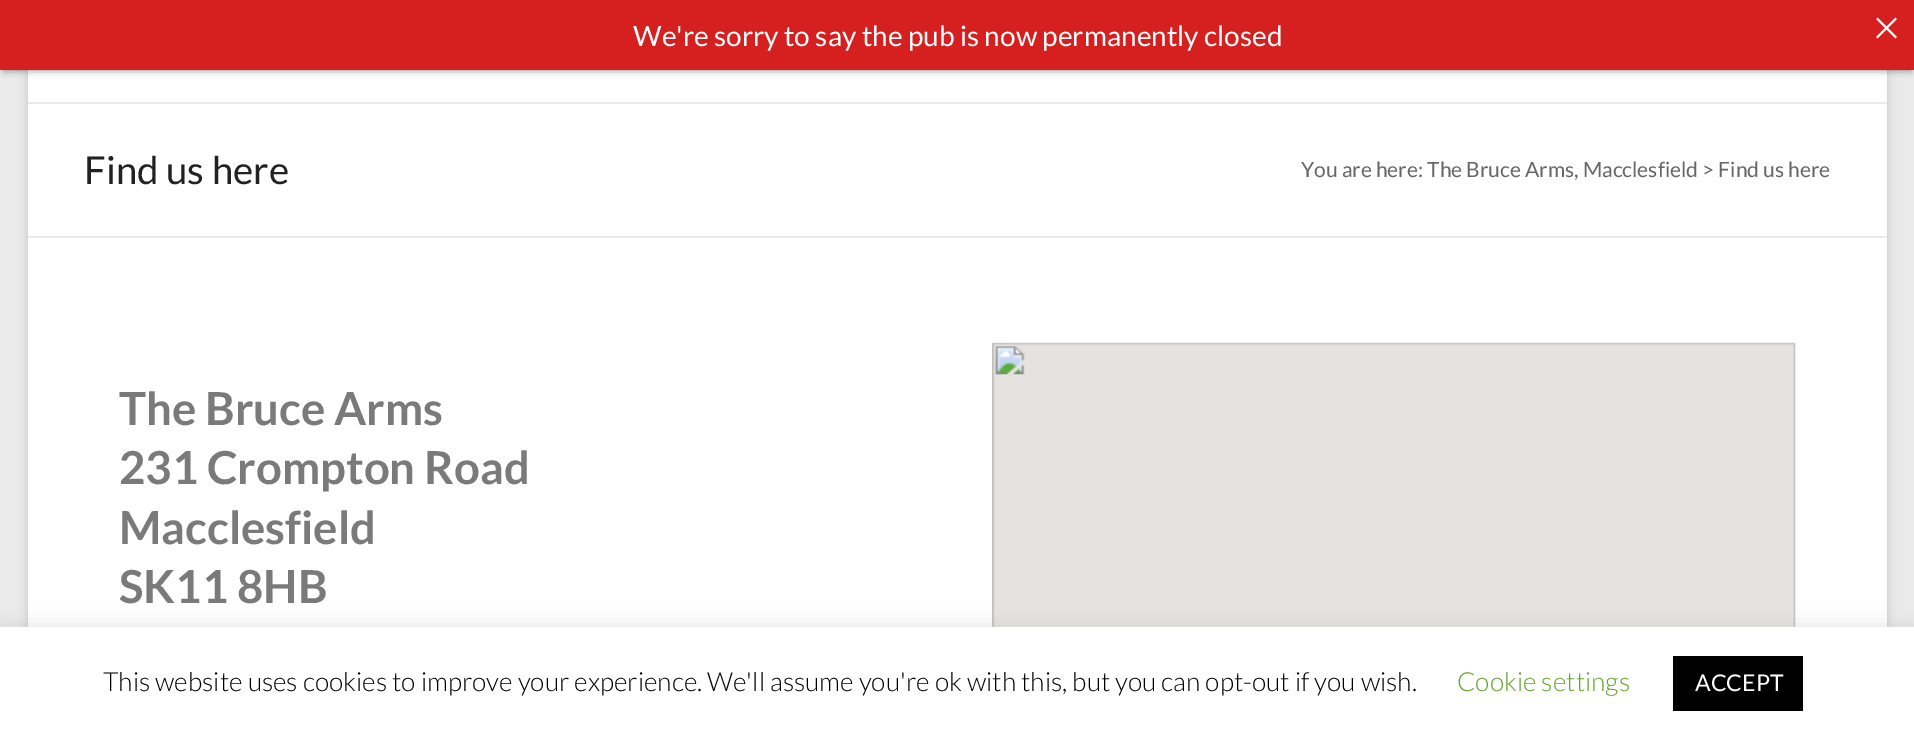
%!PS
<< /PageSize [1914 740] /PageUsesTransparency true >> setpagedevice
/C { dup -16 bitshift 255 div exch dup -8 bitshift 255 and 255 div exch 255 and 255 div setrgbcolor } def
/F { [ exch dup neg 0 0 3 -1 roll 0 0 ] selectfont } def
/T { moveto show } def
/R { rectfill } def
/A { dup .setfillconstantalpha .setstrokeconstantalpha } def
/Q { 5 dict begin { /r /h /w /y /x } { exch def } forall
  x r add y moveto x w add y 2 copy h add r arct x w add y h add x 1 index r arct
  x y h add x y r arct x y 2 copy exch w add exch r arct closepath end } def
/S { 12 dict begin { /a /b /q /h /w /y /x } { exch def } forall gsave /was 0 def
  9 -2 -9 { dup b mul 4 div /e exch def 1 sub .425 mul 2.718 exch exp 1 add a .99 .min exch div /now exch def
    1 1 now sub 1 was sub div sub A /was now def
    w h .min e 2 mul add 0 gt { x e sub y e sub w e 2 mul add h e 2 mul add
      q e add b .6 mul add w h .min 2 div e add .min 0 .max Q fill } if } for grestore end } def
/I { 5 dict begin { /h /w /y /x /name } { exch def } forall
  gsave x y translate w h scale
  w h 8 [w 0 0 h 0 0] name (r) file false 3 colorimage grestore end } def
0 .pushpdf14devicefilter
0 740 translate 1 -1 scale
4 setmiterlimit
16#EAEAEA C
0 0 1914 740 R
16#646464 C
28 -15 1859 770 0 5 .3 S
16#FFFFFF C
28 70 1859 557 R
16#000000 C
4 7 1907 63 0 3.5 .5 S
16#D61F1F C
0 0 1914 70 R
/Lato-Regular 28 F
16#FFFFFF C
(We're sorry to say the pub is now permanently closed) 633 46 T
(1.rgb) 1876 17 21 22 I
16#EAEAEA C
28 102 1859 2 R
28 236 1859 2 R
/Lato-Regular 38.5 F
16#222222 C
(Find us here) 84 184 T
/Lato-Regular 21 F
16#666666 C
(You are here: The Bruce Arms, Macclesfield > Find us here) 1301 177 T
/Lato-Bold 45.5 F
16#7A7A7A C
(The Bruce Arms) 119 425 T
(231 Crompton Road) 119 484 T
(Macclesfield) 119 544 T
(SK11 8HB) 119 603 T
(2.rgb) 992 342 804 285 I
16#ACABAB C
0 625 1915 114 0 9 .3 S
16#FFFFFF C
0 627 1914 113 R
/Lato-Light 26.25 F
16#000000 C
(This website uses cookies to improve your experience. We'll assume you're ok with this, but you can opt-out if you wish.) 103 691 T
16#62A329 C
(Cookie settings) 1457 691 T
16#000000 C
1673 656 130 55 R
/Lato-Regular 23 F
16#FFFFFF C
(ACCEPT) 1695 691 T
.poppdf14devicefilter showpage
